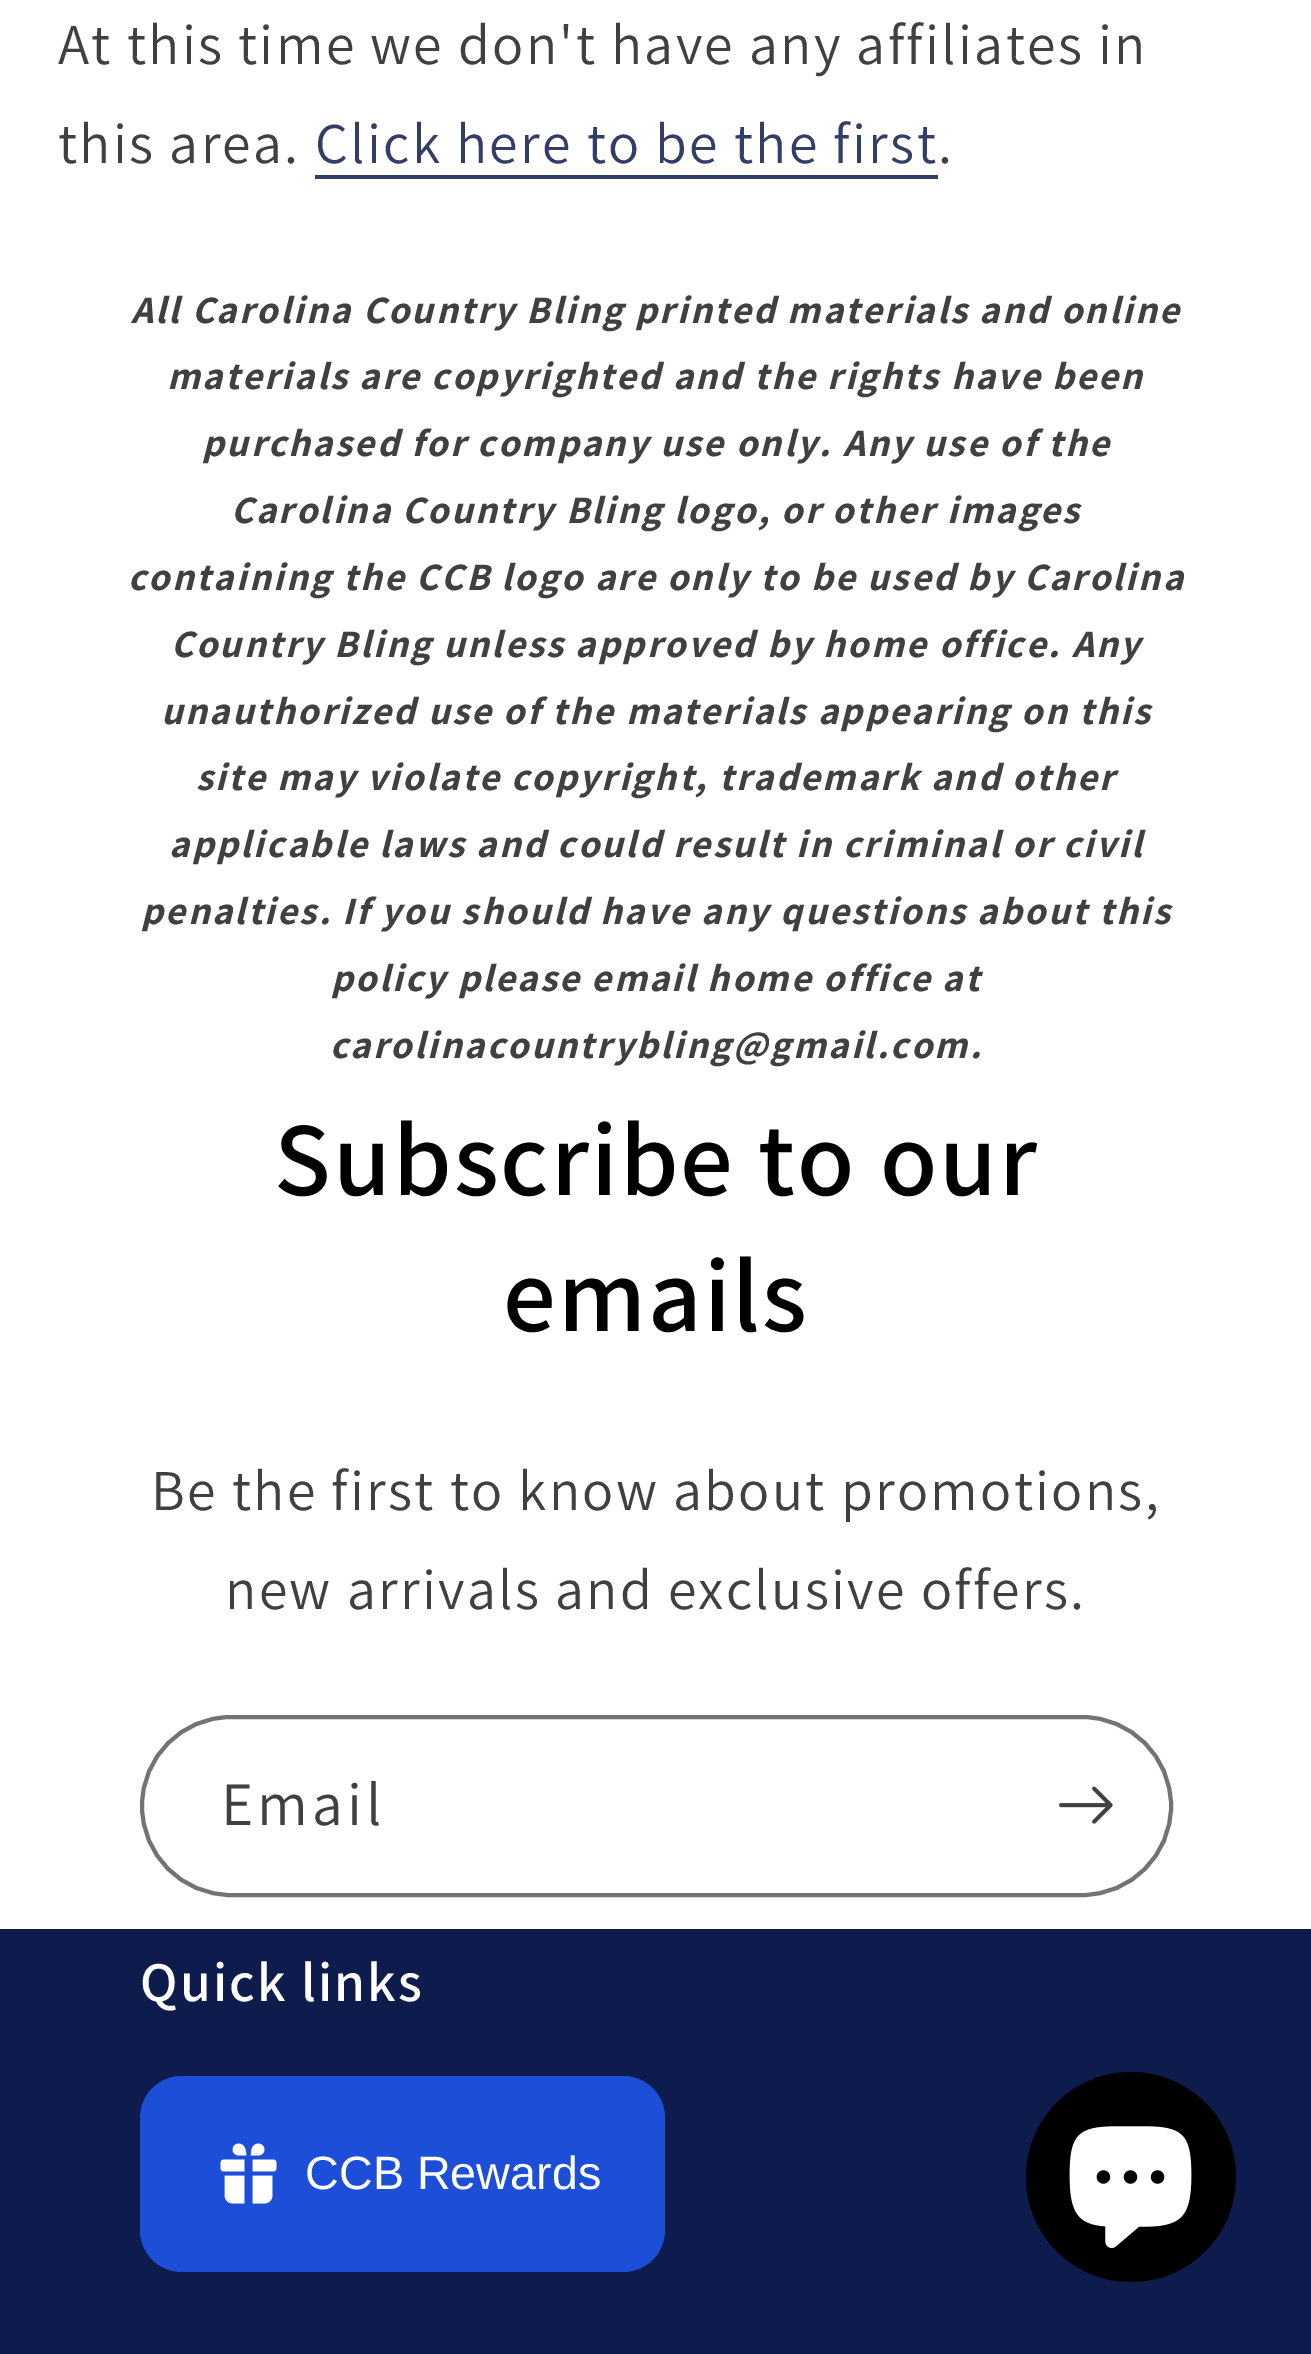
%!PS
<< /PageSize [1311 2354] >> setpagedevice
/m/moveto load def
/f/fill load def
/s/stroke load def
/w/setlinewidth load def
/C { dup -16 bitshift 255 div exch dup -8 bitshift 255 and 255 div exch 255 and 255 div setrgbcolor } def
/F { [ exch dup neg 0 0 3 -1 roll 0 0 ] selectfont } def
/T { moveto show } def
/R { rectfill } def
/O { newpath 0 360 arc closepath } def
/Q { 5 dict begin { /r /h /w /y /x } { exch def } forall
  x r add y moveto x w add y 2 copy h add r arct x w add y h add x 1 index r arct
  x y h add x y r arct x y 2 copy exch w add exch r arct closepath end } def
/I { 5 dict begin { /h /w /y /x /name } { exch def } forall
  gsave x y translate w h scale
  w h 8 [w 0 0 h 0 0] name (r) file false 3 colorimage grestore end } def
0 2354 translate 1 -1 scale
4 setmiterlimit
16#FFFFFF C
0 0 1311 2354 R
/Assistant-Regular 57.75 F
16#404040 C
58 64 m 2.3 0 (At this time we don't have any affiliates in) ashow
58 163 m 2.3 0 (this area.) ashow
16#323D68 C
315 163 m 2.3 0 (Click here to be the first) ashow
315 175 623 4 R
16#404040 C
938 163 m 2.3 0 (.) ashow
/Assistant-BoldItalic 38.7 F
131 323 m 2.3 0 (All Carolina Country Bling printed materials and online) ashow
167 389 m 2.3 0 (materials are copyrighted and the rights have been) ashow
202 456 m 2.3 0 (purchased for company use only. Any use of the) ashow
231 523 m 2.3 0 (Carolina Country Bling logo, or other images) ashow
128 590 m 2.3 0 (containing the CCB logo are only to be used by Carolina) ashow
171 657 m 2.3 0 (Country Bling unless approved by home office. Any) ashow
161 724 m 2.3 0 (unauthorized use of the materials appearing on this) ashow
196 790 m 2.3 0 (site may violate copyright, trademark and other) ashow
169 857 m 2.3 0 (applicable laws and could result in criminal or civil) ashow
141 924 m 2.3 0 (penalties. If you should have any questions about this) ashow
331 991 m 2.3 0 (policy please email home office at) ashow
330 1058 m 2.3 0 (carolinacountrybling@gmail.com.) ashow
/Assistant-SemiBold 105 F
16#000000 C
274 1195 m 2.1 0 (Subscribe to our) ashow
503 1331 m 2.1 0 (emails) ashow
/Assistant-Regular 57.75 F
16#404040 C
151 1510 m 2.3 0 (Be the first to know about promotions,) ashow
225 1609 m 2.3 0 (new arrivals and exclusive offers.) ashow
16#737373 C
4 w
142 1717 1029 178 89 Q s
/Assistant-Regular 61.5 F
16#404040 C
221 1825 m 4 0 (Email) ashow
(1.rgb) 1059 1786 54 38 I
16#0E1B4D C
0 1929 1311 425 R
/Assistant-SemiBold 56 F
16#FFFFFF C
140 2001 m 2.1 0 (Quick links) ashow
16#1D4ED8 C
140 2076 525 196 42 Q f
(2.rgb) 220 2143 57 61 I
/LiberationSans-Regular 46.75 F
16#FFFFFF C
(CCB Rewards) 305 2189 T
16#000000 C
1131 2177 105 O f
(3.rgb) 1069 2126 123 122 I
showpage
